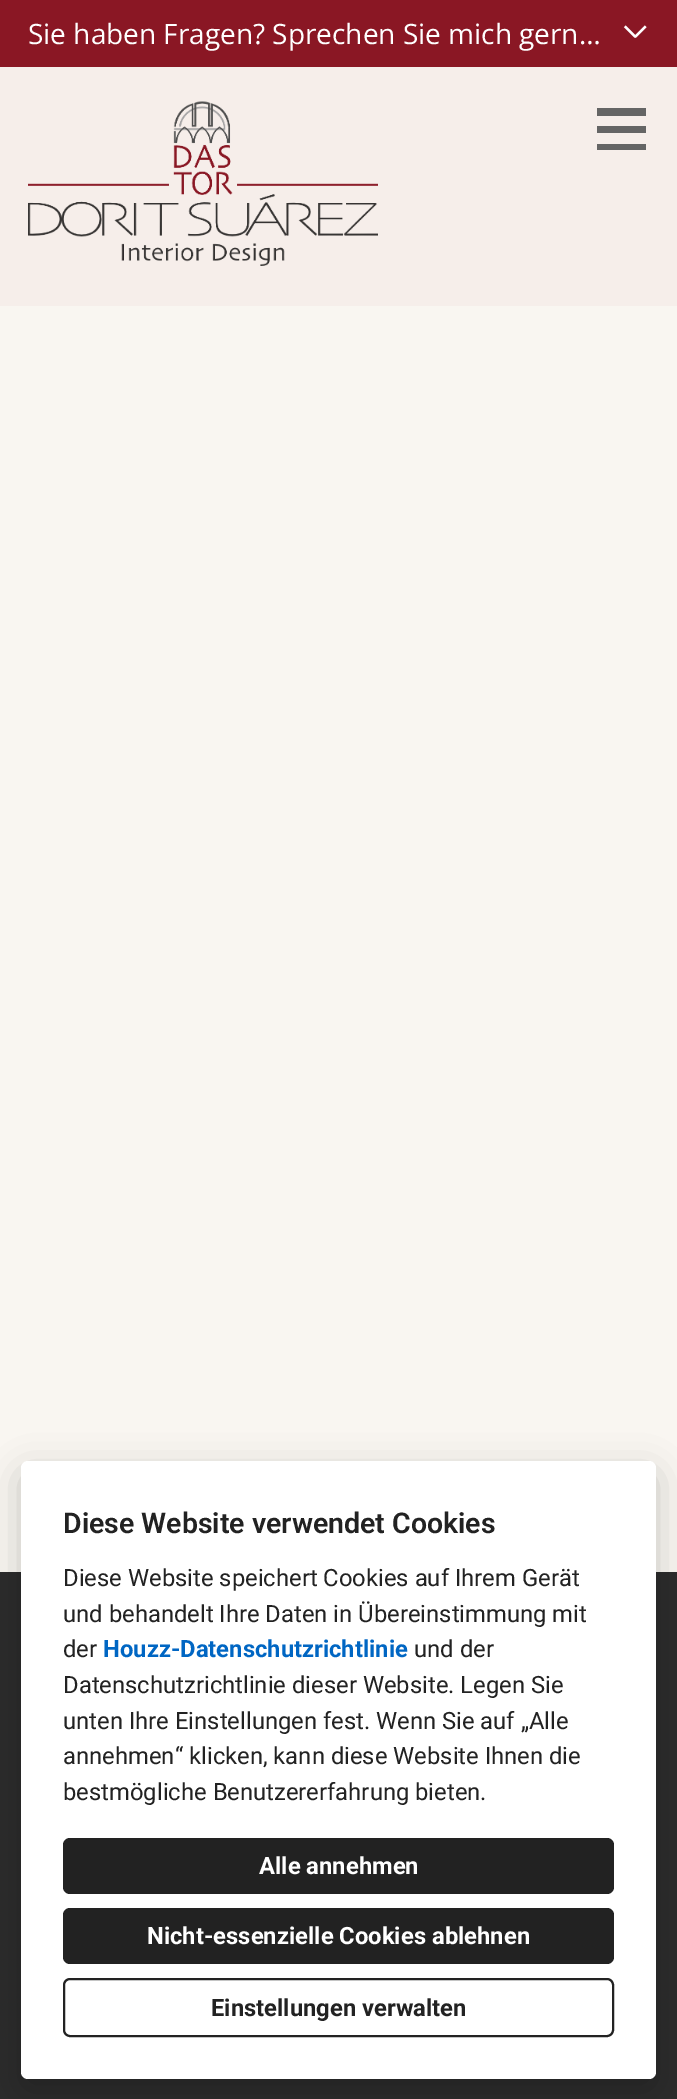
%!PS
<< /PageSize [677 2099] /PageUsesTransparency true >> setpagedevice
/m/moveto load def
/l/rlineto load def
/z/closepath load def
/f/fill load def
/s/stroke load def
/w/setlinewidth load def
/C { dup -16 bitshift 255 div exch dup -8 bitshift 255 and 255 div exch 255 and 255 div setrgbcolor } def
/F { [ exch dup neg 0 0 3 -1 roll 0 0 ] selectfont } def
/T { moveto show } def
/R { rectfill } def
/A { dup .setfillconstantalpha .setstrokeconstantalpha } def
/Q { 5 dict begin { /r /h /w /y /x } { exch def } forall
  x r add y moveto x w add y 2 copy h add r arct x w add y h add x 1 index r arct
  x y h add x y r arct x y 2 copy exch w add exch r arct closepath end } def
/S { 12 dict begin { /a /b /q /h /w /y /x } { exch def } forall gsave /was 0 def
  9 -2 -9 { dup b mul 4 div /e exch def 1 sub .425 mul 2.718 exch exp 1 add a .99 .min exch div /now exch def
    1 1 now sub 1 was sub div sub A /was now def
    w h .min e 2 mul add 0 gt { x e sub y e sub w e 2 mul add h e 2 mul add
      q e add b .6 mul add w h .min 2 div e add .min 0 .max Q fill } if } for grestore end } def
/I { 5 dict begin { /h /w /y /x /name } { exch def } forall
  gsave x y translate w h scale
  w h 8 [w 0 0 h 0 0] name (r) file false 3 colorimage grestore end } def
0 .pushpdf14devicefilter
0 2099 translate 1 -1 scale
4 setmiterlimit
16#F9F6F1 C
0 0 677 2099 R
16#8A1724 C
0 0 677 67 R
/OpenSans-Regular 28 F
16#FFFFFF C
(Sie haben Fragen? Sprechen Sie mich gern…) 28 44 T
(1.rgb) 623 25 24 13 I
16#F6EEEA C
0 67 677 239 R
(2.rgb) 28 101 350 165 I
16#656565 C
597 108 m 0 8 l 49 0 l 0 -8 l z 646 126 m -49 0 l 0 7 l 49 0 l z 597 150 m 49 0 l 0 -6 l -49 0 l z f
16#2B2B2B C
0 1572 677 527 R
16#000000 C
21 1472 635 618 7 17.5 .2 S
16#FFFFFF C
21 1461 635 618 7 Q f
/Roboto-SemiBold 28.5 F
16#222222 C
(Diese Website verwendet Cookies) 63 1533 T
/Roboto-Regular 23.8 F
(Diese Website speichert Cookies auf Ihrem Gerät) 63 1586 T
(und behandelt Ihre Daten in Übereinstimmung mit) 63 1622 T
(der) 63 1657 T
/Roboto-Bold 23.8 F
16#0066C3 C
(Houzz-Datenschutzrichtlinie) 103 1657 T
/Roboto-Regular 23.8 F
16#222222 C
(und der) 414 1657 T
(Datenschutzrichtlinie dieser Website. Legen Sie) 63 1693 T
(unten Ihre Einstellungen fest. Wenn Sie auf „Alle) 63 1729 T
(annehmen“ klicken, kann diese Website Ihnen die) 63 1764 T
(bestmögliche Benutzererfahrung bieten.) 63 1800 T
63 1838 551 56 7 Q f
/Roboto-Bold 23.8 F
16#FFFFFF C
(Alle annehmen) 259 1874 T
16#222222 C
63 1908 551 56 7 Q f
16#FFFFFF C
(Nicht-essenzielle Cookies ablehnen) 147 1944 T
16#222222 C
2 w
64 1979 549 57 6 Q s
(Einstellungen verwalten) 211 2016 T
.poppdf14devicefilter showpage
